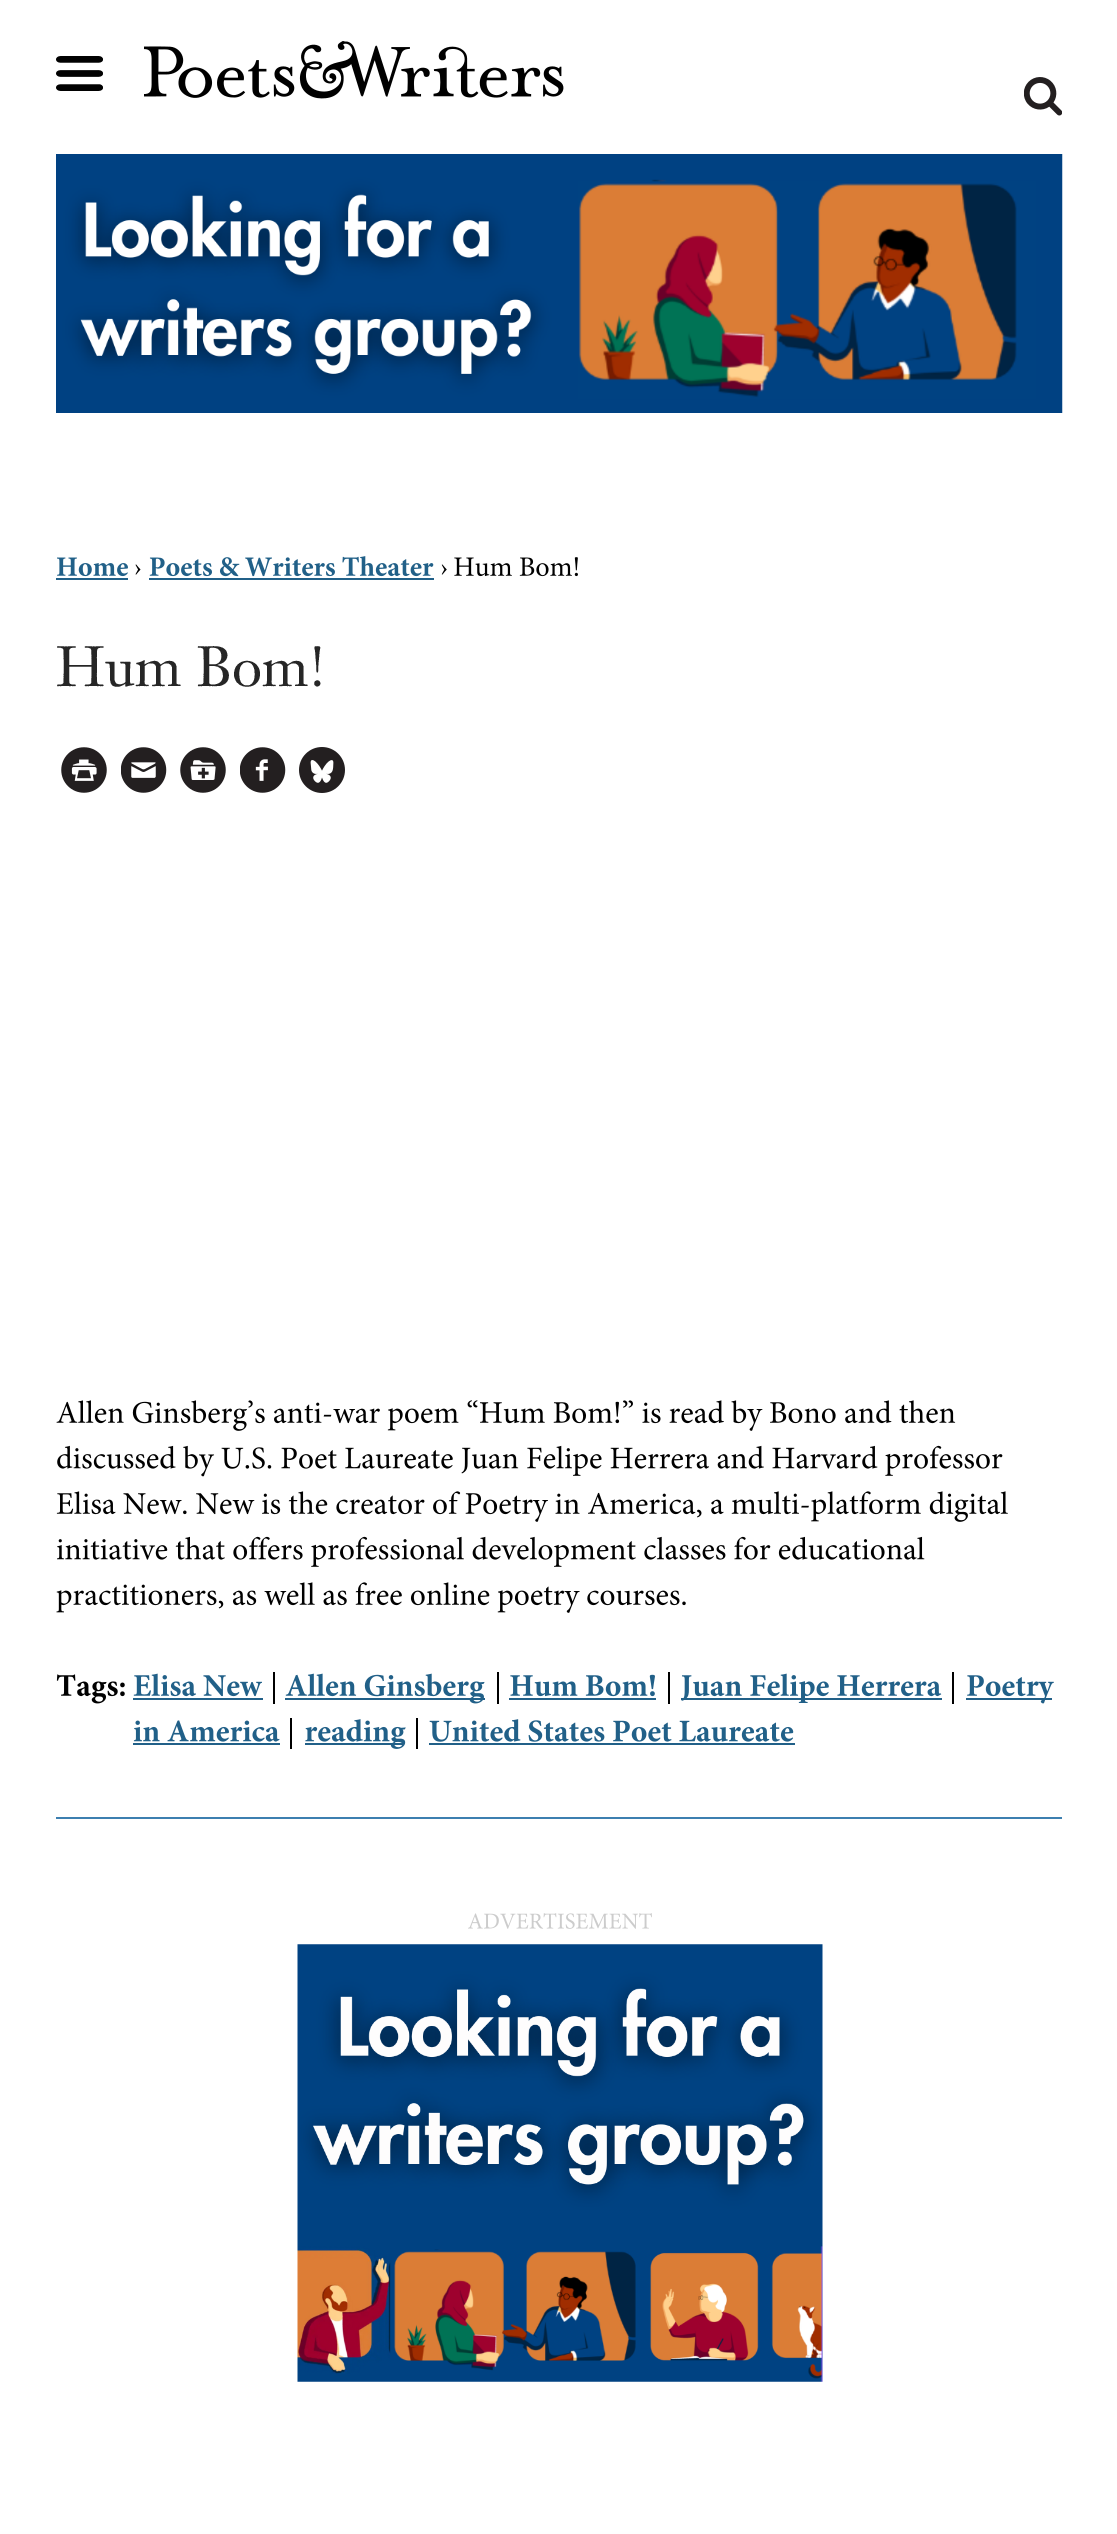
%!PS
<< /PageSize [1117 2534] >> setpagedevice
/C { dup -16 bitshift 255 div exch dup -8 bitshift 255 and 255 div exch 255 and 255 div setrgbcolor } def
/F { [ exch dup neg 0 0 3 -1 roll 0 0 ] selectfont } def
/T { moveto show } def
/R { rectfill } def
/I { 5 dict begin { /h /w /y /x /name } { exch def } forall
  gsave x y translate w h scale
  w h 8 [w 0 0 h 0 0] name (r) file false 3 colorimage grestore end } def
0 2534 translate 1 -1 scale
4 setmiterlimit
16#FFFFFF C
0 0 1117 2534 R
(1.rgb) 144 41 420 58 I
(2.rgb) 56 56 47 35 I
(3.rgb) 1024 77 38 39 I
(4.rgb) 56 154 1007 259 I
(5.rgb) 57 557 71 20 I
(6.rgb) 135 564 6 11 I
(7.rgb) 149 556 285 21 I
(8.rgb) 441 564 6 11 I
(9.rgb) 454 557 124 20 I
16#216088 C
56 578 72 2 R
149 578 285 2 R
/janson-Regular 56 F
16#262626 C
(Hum Bom!) 56 686 T
(10.rgb) 61 747 46 46 I
(11.rgb) 121 747 46 46 I
(12.rgb) 180 747 46 46 I
(13.rgb) 240 747 46 46 I
(14.rgb) 299 747 46 46 I
(15.rgb) 56 1400 900 31 I
(16.rgb) 57 1445 946 32 I
(17.rgb) 56 1491 952 31 I
(18.rgb) 57 1536 868 31 I
(19.rgb) 56 1582 630 31 I
(20.rgb) 56 1674 69 30 I
(21.rgb) 133 1673 129 24 I
16#000000 C
273 1672 2 32 R
16#216088 C
285 1698 200 2 R
(22.rgb) 285 1673 200 31 I
16#000000 C
497 1672 2 32 R
(23.rgb) 510 1674 145 23 I
668 1672 2 32 R
16#216088 C
681 1698 261 2 R
(24.rgb) 681 1673 261 30 I
16#000000 C
952 1672 2 32 R
16#216088 C
966 1698 86 2 R
(25.rgb) 967 1675 87 29 I
133 1698 130 2 R
509 1698 147 2 R
(26.rgb) 133 1720 147 22 I
16#000000 C
290 1718 2 31 R
16#216088 C
305 1743 99 2 R
(27.rgb) 305 1719 101 30 I
16#000000 C
416 1718 2 31 R
(28.rgb) 429 1719 365 23 I
16#216088 C
133 1743 147 2 R
429 1743 366 2 R
16#3C7FB0 C
56 1817 1006 2 R
(29.rgb) 468 1913 184 16 I
(30.rgb) 297 1944 526 438 I
showpage
